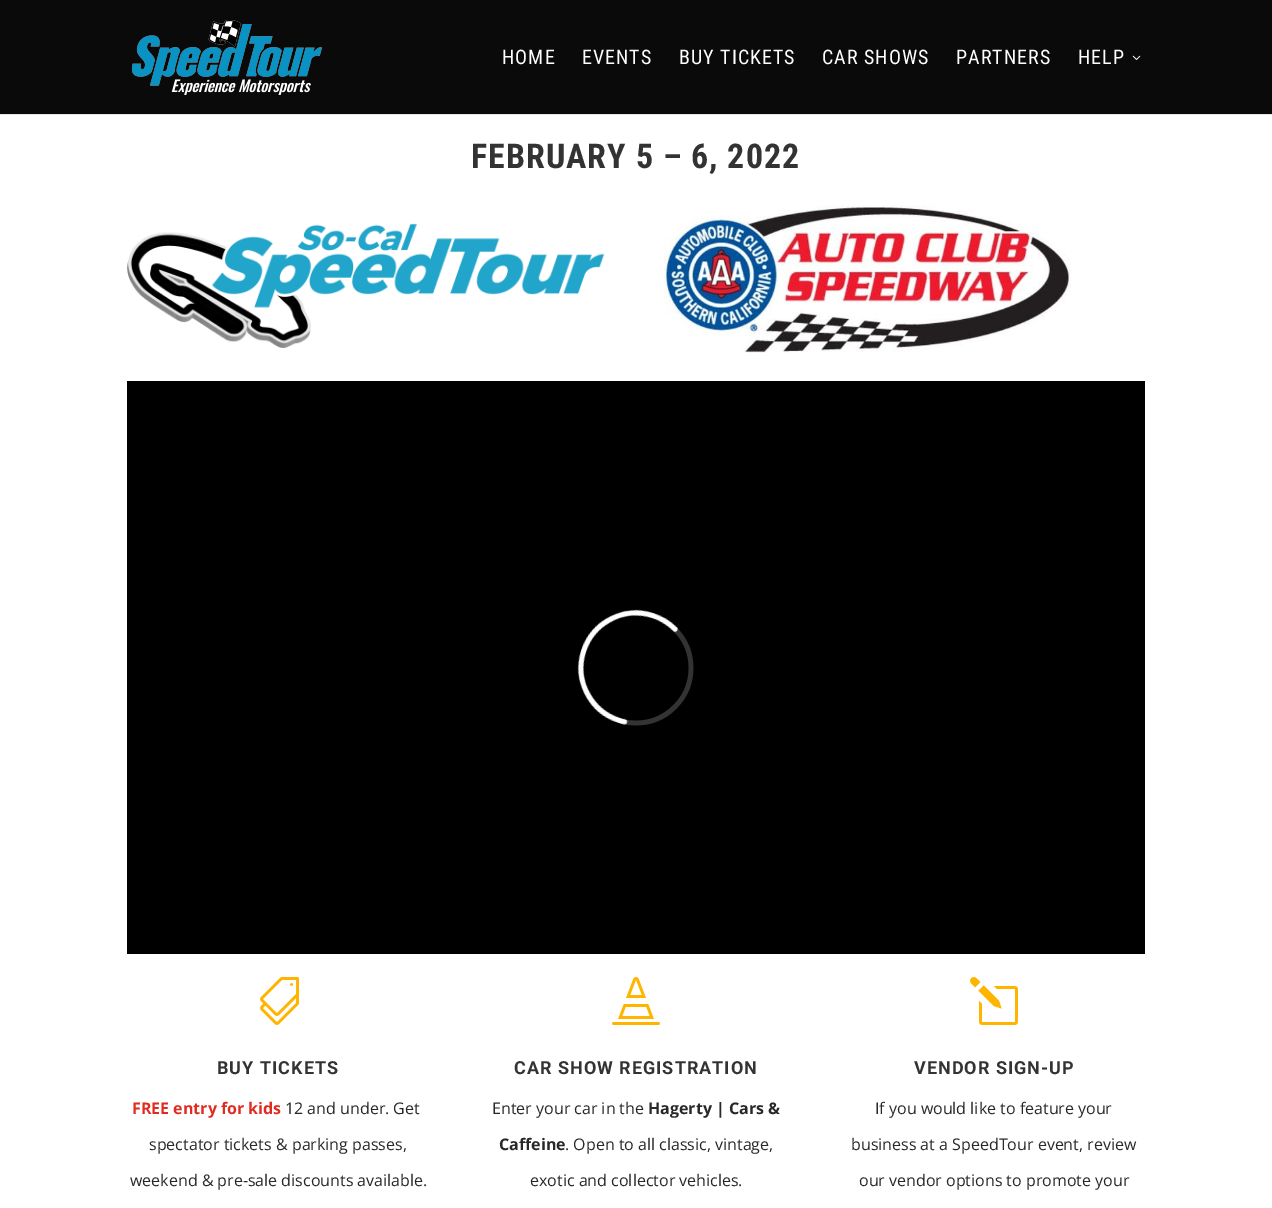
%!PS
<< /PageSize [1272 1208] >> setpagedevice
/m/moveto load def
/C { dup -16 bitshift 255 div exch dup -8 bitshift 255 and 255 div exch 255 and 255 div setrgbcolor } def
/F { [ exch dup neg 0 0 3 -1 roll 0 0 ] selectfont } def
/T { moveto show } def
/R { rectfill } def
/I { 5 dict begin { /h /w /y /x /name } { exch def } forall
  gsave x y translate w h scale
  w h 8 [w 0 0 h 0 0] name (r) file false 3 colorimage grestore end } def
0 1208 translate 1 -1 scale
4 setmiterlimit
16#FFFFFF C
0 0 1272 1208 R
16#E6E6E6 C
0 114 1272 1 R
16#0A0A0A C
0 0 1272 114 R
(1.rgb) 132 20 190 75 I
/RobotoCondensed-Regular 20 F
16#FFFFFF C
502 64 m 1 0 (HOME) ashow
582 64 m 1 0 (EVENTS) ashow
679 64 m 1 0 (BUY TICKETS) ashow
822 64 m 1 0 (CAR SHOWS) ashow
956 64 m 1 0 (PARTNERS) ashow
1078 64 m 1 0 (HELP) ashow
(2.rgb) 1132 55 9 5 I
/RobotoCondensed-Bold 34 F
16#333333 C
471 168 m 1 0 (FEBRUARY 5 – 6, 2022) ashow
(3.rgb) 127 223 478 125 I
(4.rgb) 664 205 407 148 I
(5.rgb) 127 381 1018 573 I
(6.rgb) 260 977 39 48 I
/Roboto-Bold 18 F
217 1074 m 1 0 (BUY TICKETS) ashow
/OpenSans-Bold 16 F
16#E02B20 C
(FREE entry for kids) 132 1114 T
/OpenSans-Regular 16 F
16#282828 C
(12 and under. Get) 285 1114 T
(spectator tickets & parking passes,) 149 1150 T
(weekend & pre-sale discounts available.) 130 1186 T
(7.rgb) 612 977 48 48 I
/Roboto-Bold 18 F
16#333333 C
514 1074 m 1 0 (CAR SHOW REGISTRATION) ashow
/OpenSans-Regular 16 F
16#282828 C
(Enter your car in the) 492 1114 T
/OpenSans-Bold 16 F
(Hagerty | Cars &) 648 1114 T
(Caffeine) 499 1150 T
/OpenSans-Regular 16 F
(. Open to all classic, vintage,) 565 1150 T
(exotic and collector vehicles.) 530 1186 T
(8.rgb) 970 977 48 48 I
/Roboto-Bold 18 F
16#333333 C
914 1074 m 1 0 (VENDOR SIGN-UP) ashow
/OpenSans-Regular 16 F
16#282828 C
(If you would like to feature your) 875 1114 T
(business at a SpeedTour event, review) 851 1150 T
(our vendor options to promote your) 859 1186 T
showpage
